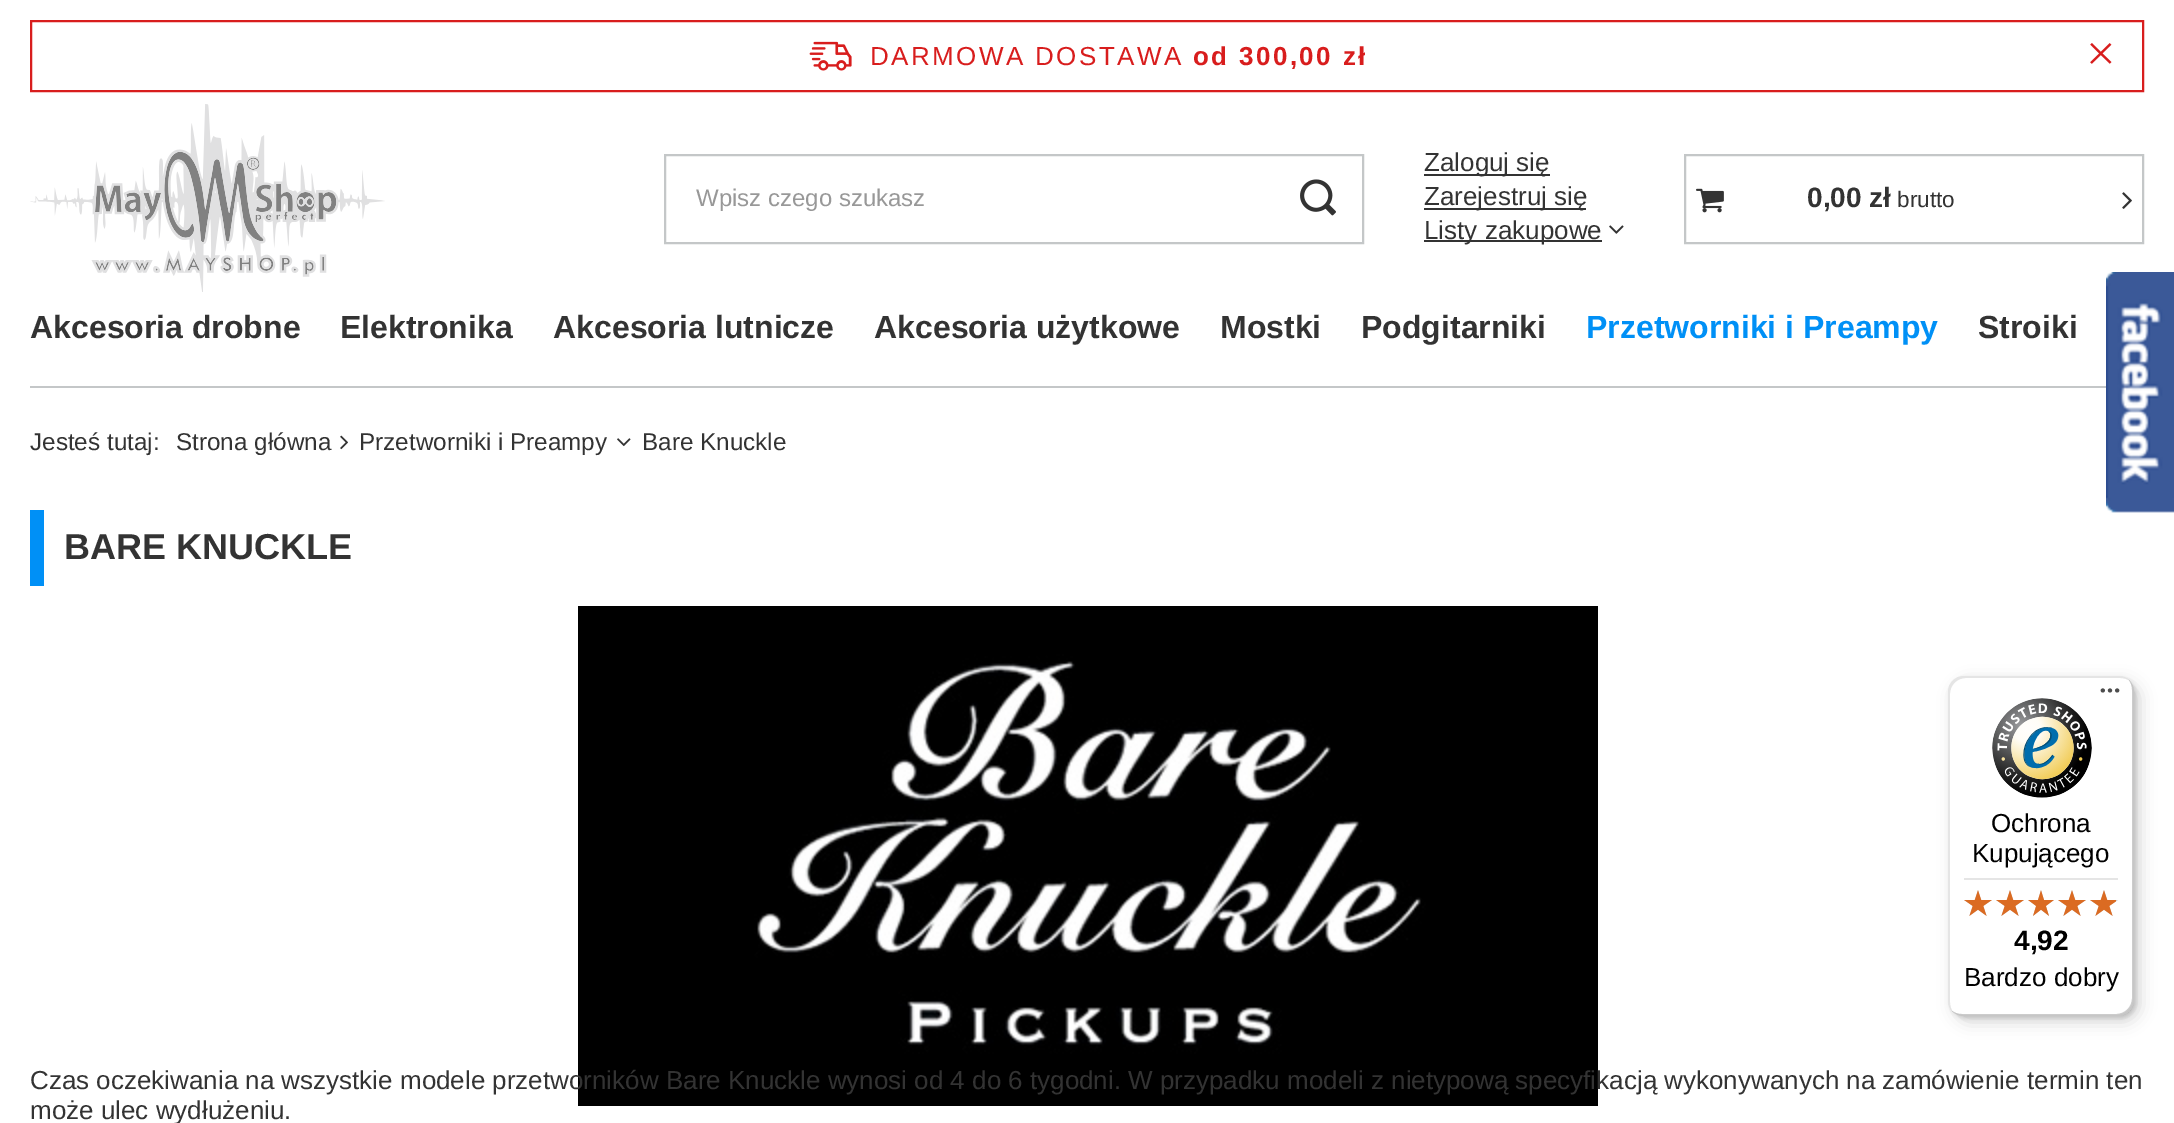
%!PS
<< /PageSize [2174 1123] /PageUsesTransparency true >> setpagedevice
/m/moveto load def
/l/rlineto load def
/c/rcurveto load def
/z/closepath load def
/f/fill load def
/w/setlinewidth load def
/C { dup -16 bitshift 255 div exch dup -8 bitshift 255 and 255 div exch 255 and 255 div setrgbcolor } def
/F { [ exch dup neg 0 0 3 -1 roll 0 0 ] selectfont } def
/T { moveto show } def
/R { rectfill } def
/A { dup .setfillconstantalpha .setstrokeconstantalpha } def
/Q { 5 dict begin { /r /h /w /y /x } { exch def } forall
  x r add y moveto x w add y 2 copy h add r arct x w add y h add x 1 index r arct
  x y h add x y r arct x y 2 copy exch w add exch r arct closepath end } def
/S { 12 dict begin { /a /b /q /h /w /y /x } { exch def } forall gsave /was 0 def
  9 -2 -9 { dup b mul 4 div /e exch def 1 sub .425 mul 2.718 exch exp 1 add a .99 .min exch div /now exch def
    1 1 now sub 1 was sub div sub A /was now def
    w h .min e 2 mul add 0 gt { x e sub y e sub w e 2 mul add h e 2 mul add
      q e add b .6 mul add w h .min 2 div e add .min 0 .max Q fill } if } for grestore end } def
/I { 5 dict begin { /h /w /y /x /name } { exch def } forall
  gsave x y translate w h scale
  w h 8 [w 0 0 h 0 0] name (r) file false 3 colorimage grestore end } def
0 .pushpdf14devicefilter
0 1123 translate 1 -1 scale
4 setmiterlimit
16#FFFFFF C
0 0 2174 1123 R
16#D81D1D C
2 w
31 21 2112 70 rectstroke
(1.rgb) 809 41 43 30 I
/LiberationSans-Regular 26 F
870 65 m 2.4 0 (DARMOWA DOSTAWA) ashow
/LiberationSans-Bold 26 F
1193 65 m 2.4 0 (od 300,00 zł) ashow
(2.rgb) 2090 43 22 21 I
(3.rgb) 30 104 355 188 I
16#C4C7C8 C
665 155 698 88 rectstroke
/LiberationSans-Regular 24 F
16#989898 C
(Wpisz czego szukasz) 696 206 T
(4.rgb) 1300 179 36 37 I
16#333333 C
1424 174 126 2 R
/LiberationSans-Regular 26 F
(Zaloguj się) 1424 171 T
1424 208 162 2 R
(Zarejestruj się) 1424 205 T
1424 240 178 2 R
(Listy zakupowe) 1424 239 T
(5.rgb) 1609 225 15 9 I
16#C4C7C8 C
1685 155 458 88 rectstroke
(6.rgb) 1696 188 28 25 I
/LiberationSans-Bold 28 F
16#333333 C
(0,00 zł) 1807 207 T
/LiberationSans-Regular 22.5 F
(brutto) 1897 207 T
(7.rgb) 2122 192 10 17 I
16#C4C7C8 C
30 386 2076 2 R
/LiberationSans-Bold 32 F
16#333333 C
(Akcesoria drobne) 30 338 T
(Elektronika) 340 338 T
(Akcesoria lutnicze) 553 338 T
(Akcesoria użytkowe) 874 338 T
(Mostki) 1220 338 T
(Podgitarniki) 1361 338 T
16#0090F6 C
(Przetworniki i Preampy) 1586 338 T
16#333333 C
(Stroiki) 1978 338 T
/LiberationSans-Regular 24.25 F
(Jesteś tutaj:) 30 450 T
(Strona główna) 176 450 T
(8.rgb) 340 435 8 15 I
(Przetworniki i Preampy) 359 450 T
(9.rgb) 617 438 14 9 I
(Bare Knuckle) 642 450 T
16#0090F6 C
30 510 14 76 R
/LiberationSans-Bold 36 F
16#333333 C
(BARE KNUCKLE) 64 559 T
(10.rgb) 578 606 1020 500 I
/LiberationSans-Regular 26 F
(Czas oczekiwania na wszystkie modele przetworników Bare Knuckle wynosi od 4 do 6 tygodni. W przypadku modeli z nietypową specyfikacją wykonywanych na zamówienie termin ten) 30 1089 T
(może ulec wydłużeniu.) 30 1119 T
(11.rgb) 2106 272 68 241 I
16#000000 C
1954 682 186 340 16 8 .15 S
1950 678 186 340 16 2 .15 S
16#FFFFFF C
1948 676 186 340 16 Q f
0.1 A
16#000000 C
1966 678 m 154 0 l 4 0 7 1 10 3 c -3 -3 -7 -5 -12 -5 c -154 0 l -9 0 -16 7 -16 16 c 0 308 l 0 5 2 9 5 12 c -2 -3 -3 -6 -3 -10 c 0 -308 l 0 -9 7 -16 16 -16 c z f
0.2 A
1952 1011 m 3 3 7 5 12 5 c 154 0 l 9 0 16 -7 16 -16 c 0 -308 l 0 -5 -2 -9 -5 -12 c 2 3 3 6 3 10 c 0 308 l 0 9 -7 16 -16 16 c -154 0 l -4 0 -7 -1 -10 -3 c z f
16#323232 C
1953 1011 m 3 3 7 5 11 5 c 154 0 l 9 0 16 -7 16 -16 c 0 -308 l 0 -4 -2 -8 -5 -11 c 3 3 4 6 4 10 c 0 308 l 0 9 -7 16 -16 16 c -154 0 l -4 0 -7 -1 -10 -4 c z f
0.3 A
16#FFFFFF C
1953 1011 m 3 3 7 5 11 5 c 154 0 l 9 0 16 -7 16 -16 c 0 -308 l 0 -4 -2 -8 -5 -11 c 3 3 4 6 4 10 c 0 308 l 0 9 -7 16 -16 16 c -154 0 l -4 0 -7 -1 -10 -4 c z f
1 A
(12.rgb) 2100 688 20 5 I
(13.rgb) 1992 698 100 100 I
16#000000 C
(Ochrona) 1991 832 T
(Kupującego) 1972 862 T
16#E5E5E5 C
1964 878 154 2 R
(14.rgb) 1964 890 28 26 I
(14.rgb) 1996 890 28 26 I
(15.rgb) 2028 890 26 26 I
(14.rgb) 2058 890 28 26 I
(14.rgb) 2090 890 28 26 I
(16.rgb) 1964 890 28 26 I
(16.rgb) 1996 890 28 26 I
(17.rgb) 2028 890 26 26 I
(16.rgb) 2058 890 28 26 I
(18.rgb) 2090 890 26 26 I
/LiberationSans-Bold 28 F
16#000000 C
(4,92) 2014 950 T
/LiberationSans-Regular 26 F
(Bardzo dobry) 1964 986 T
.poppdf14devicefilter showpage
